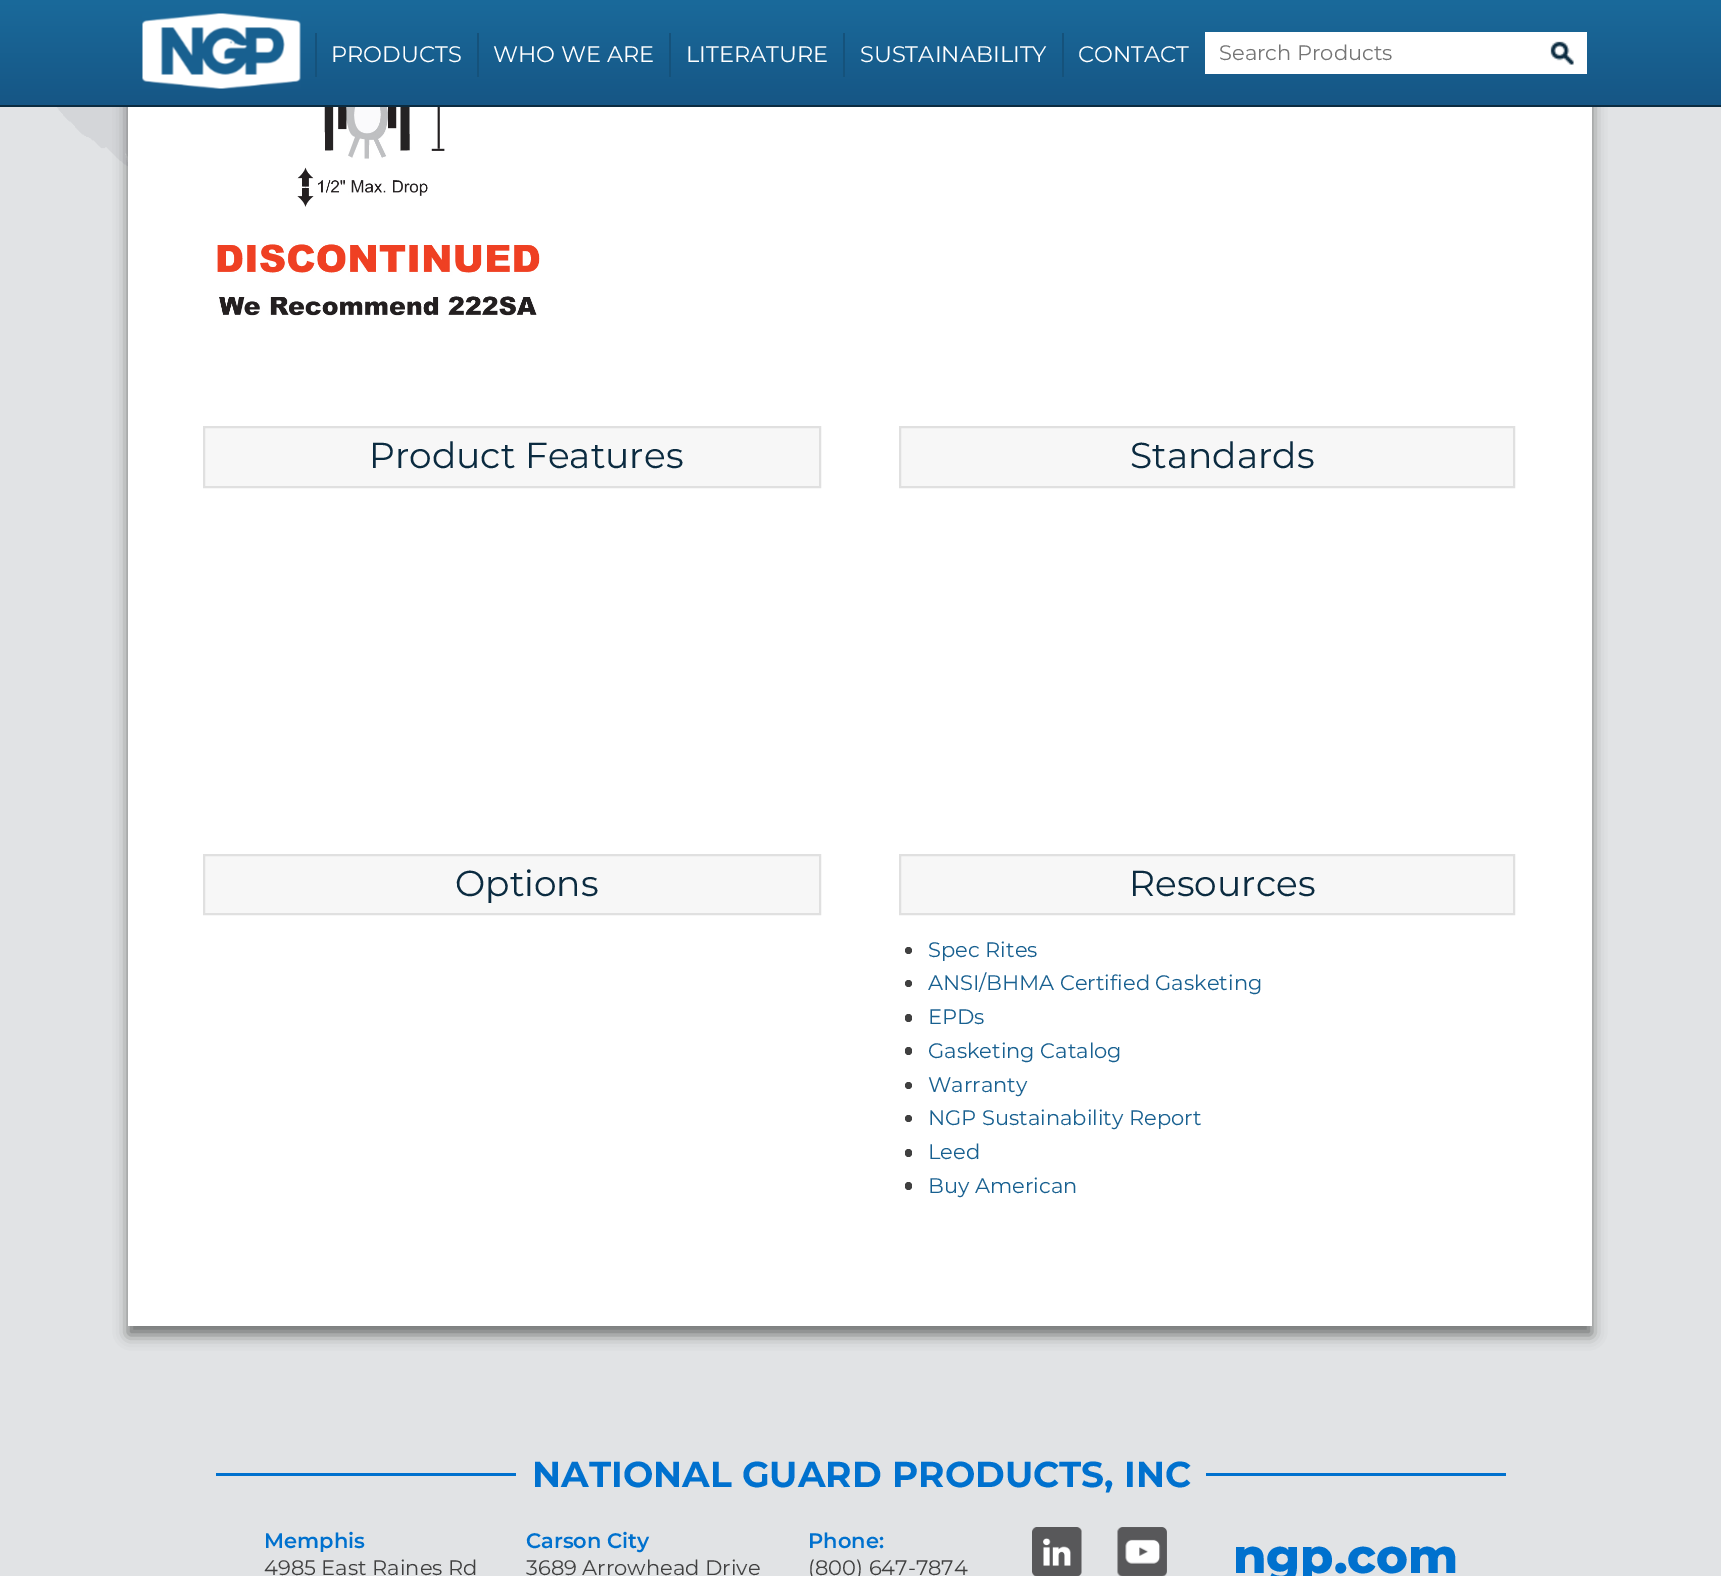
%!PS
<< /PageSize [1721 1576] /PageUsesTransparency true >> setpagedevice
/m/moveto load def
/l/rlineto load def
/z/closepath load def
/f/fill load def
/s/stroke load def
/q/gsave load def
/Q_/grestore load def
/w/setlinewidth load def
/C { dup -16 bitshift 255 div exch dup -8 bitshift 255 and 255 div exch 255 and 255 div setrgbcolor } def
/F { [ exch dup neg 0 0 3 -1 roll 0 0 ] selectfont } def
/T { moveto show } def
/R { rectfill } def
/A { dup .setfillconstantalpha .setstrokeconstantalpha } def
/O { newpath 0 360 arc closepath } def
/Q { 5 dict begin { /r /h /w /y /x } { exch def } forall
  x r add y moveto x w add y 2 copy h add r arct x w add y h add x 1 index r arct
  x y h add x y r arct x y 2 copy exch w add exch r arct closepath end } def
/S { 12 dict begin { /a /b /q /h /w /y /x } { exch def } forall gsave /was 0 def
  9 -2 -9 { dup b mul 4 div /e exch def 1 sub .425 mul 2.718 exch exp 1 add a .99 .min exch div /now exch def
    1 1 now sub 1 was sub div sub A /was now def
    w h .min e 2 mul add 0 gt { x e sub y e sub w e 2 mul add h e 2 mul add
      q e add b .6 mul add w h .min 2 div e add .min 0 .max Q fill } if } for grestore end } def
/I { 5 dict begin { /h /w /y /x /name } { exch def } forall
  gsave x y translate w h scale
  w h 8 [w 0 0 h 0 0] name (r) file false 3 colorimage grestore end } def
0 .pushpdf14devicefilter
0 1576 translate 1 -1 scale
4 setmiterlimit
16#E1E3E5 C
0 0 1721 1576 R
(1.rgb) 56 107 72 60 I
16#000000 C
128 -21 1464 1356 0 7 .5 S
q 0 0 m 1721 0 l 0 105 l -1721 0 l z clip newpath
<< /ShadingType 2 /ColorSpace /DeviceRGB /Coords [861 0 861 105] /Extend [true true] /Function << /FunctionType 2 /Domain [0 1] /C0 [.102 .416 .608] /C1 [.086 .337 .522] /N 1 >> >> shfill Q_
16#0B2B40 C
0 105 1721 2 R
(2.rgb) 142 13 159 76 I
16#15527B C
315 33 2 44 R
/Montserrat-Regular 22.5 F
16#FFFFFF C
(PRODUCTS) 331 62 T
16#15527B C
477 33 2 44 R
16#FFFFFF C
(WHO WE ARE) 493 62 T
16#15527B C
669 33 2 44 R
16#FFFFFF C
(LITERATURE) 686 62 T
16#15527B C
843 33 2 44 R
16#FFFFFF C
(SUSTAINABILITY) 860 62 T
16#15527B C
1062 33 2 44 R
16#FFFFFF C
(CONTACT) 1078 62 T
1205 32 382 42 R
/Montserrat-Regular 21 F
16#757575 C
(Search Products) 1219 60 T
(3.rgb) 1550 41 24 24 I
16#FFFFFF C
128 107 1464 1219 R
(4.rgb) 217 107 323 209 I
16#F7F7F7 C
204 427 m 616 0 l 0 60 l -616 0 l z q f Q_
16#E0E0E0 C
2 w
s
/Montserrat-Regular 36 F
16#0B2B40 C
(Product Features) 369 468 T
16#F7F7F7 C
900 427 m 614 0 l 0 60 l -614 0 l z q f Q_
16#E0E0E0 C
s
16#0B2B40 C
(Standards) 1130 468 T
16#F7F7F7 C
204 855 m 616 0 l 0 59 l -616 0 l z q f Q_
16#E0E0E0 C
s
16#0B2B40 C
(Options) 455 896 T
16#F7F7F7 C
900 855 m 614 0 l 0 59 l -614 0 l z q f Q_
16#E0E0E0 C
s
16#0B2B40 C
(Resources) 1129 896 T
16#404040 C
908.5 950.5 3.5 O f
/Montserrat-Regular 21 F
16#186090 C
(Spec Rites) 928 957 T
16#404040 C
908.5 983.5 3.5 O f
16#186090 C
(ANSI/BHMA Certified Gasketing) 928 990 T
16#404040 C
905 1014 7 8 3.5 Q f
16#186090 C
(EPDs) 928 1024 T
16#404040 C
905 1047 7 8 3.5 Q f
16#186090 C
(Gasketing Catalog) 928 1058 T
16#404040 C
908.5 1085.5 3.5 O f
16#186090 C
(Warranty) 928 1092 T
16#404040 C
908.5 1118.5 3.5 O f
16#186090 C
(NGP Sustainability Report) 928 1125 T
16#404040 C
905 1149 7 8 3.5 Q f
16#186090 C
(Leed) 928 1159 T
16#404040 C
905 1182 7 8 3.5 Q f
16#186090 C
(Buy American) 928 1193 T
16#0071CE C
216 1473 300 3 R
/Montserrat-Bold 36 F
(NATIONAL GUARD PRODUCTS, INC) 532 1487 T
1206 1473 300 3 R
/Montserrat-SemiBold 21 F
(Memphis) 264 1548 T
/Montserrat-Regular 21 F
16#404040 C
(4985 East Raines Rd) 264 1575 T
/Montserrat-SemiBold 21 F
16#0071CE C
(Carson City) 526 1548 T
/Montserrat-Regular 21 F
16#404040 C
(3689 Arrowhead Drive) 526 1575 T
/Montserrat-SemiBold 21 F
16#0071CE C
(Phone:) 808 1548 T
/Montserrat-Regular 21 F
16#404040 C
(\(800\) 647-7874) 808 1575 T
(5.rgb) 1032 1527 50 49 I
(6.rgb) 1117 1527 50 49 I
/Montserrat-ExtraBold 48 F
16#0071CE C
(ngp.com) 1233 1573 T
.poppdf14devicefilter showpage
